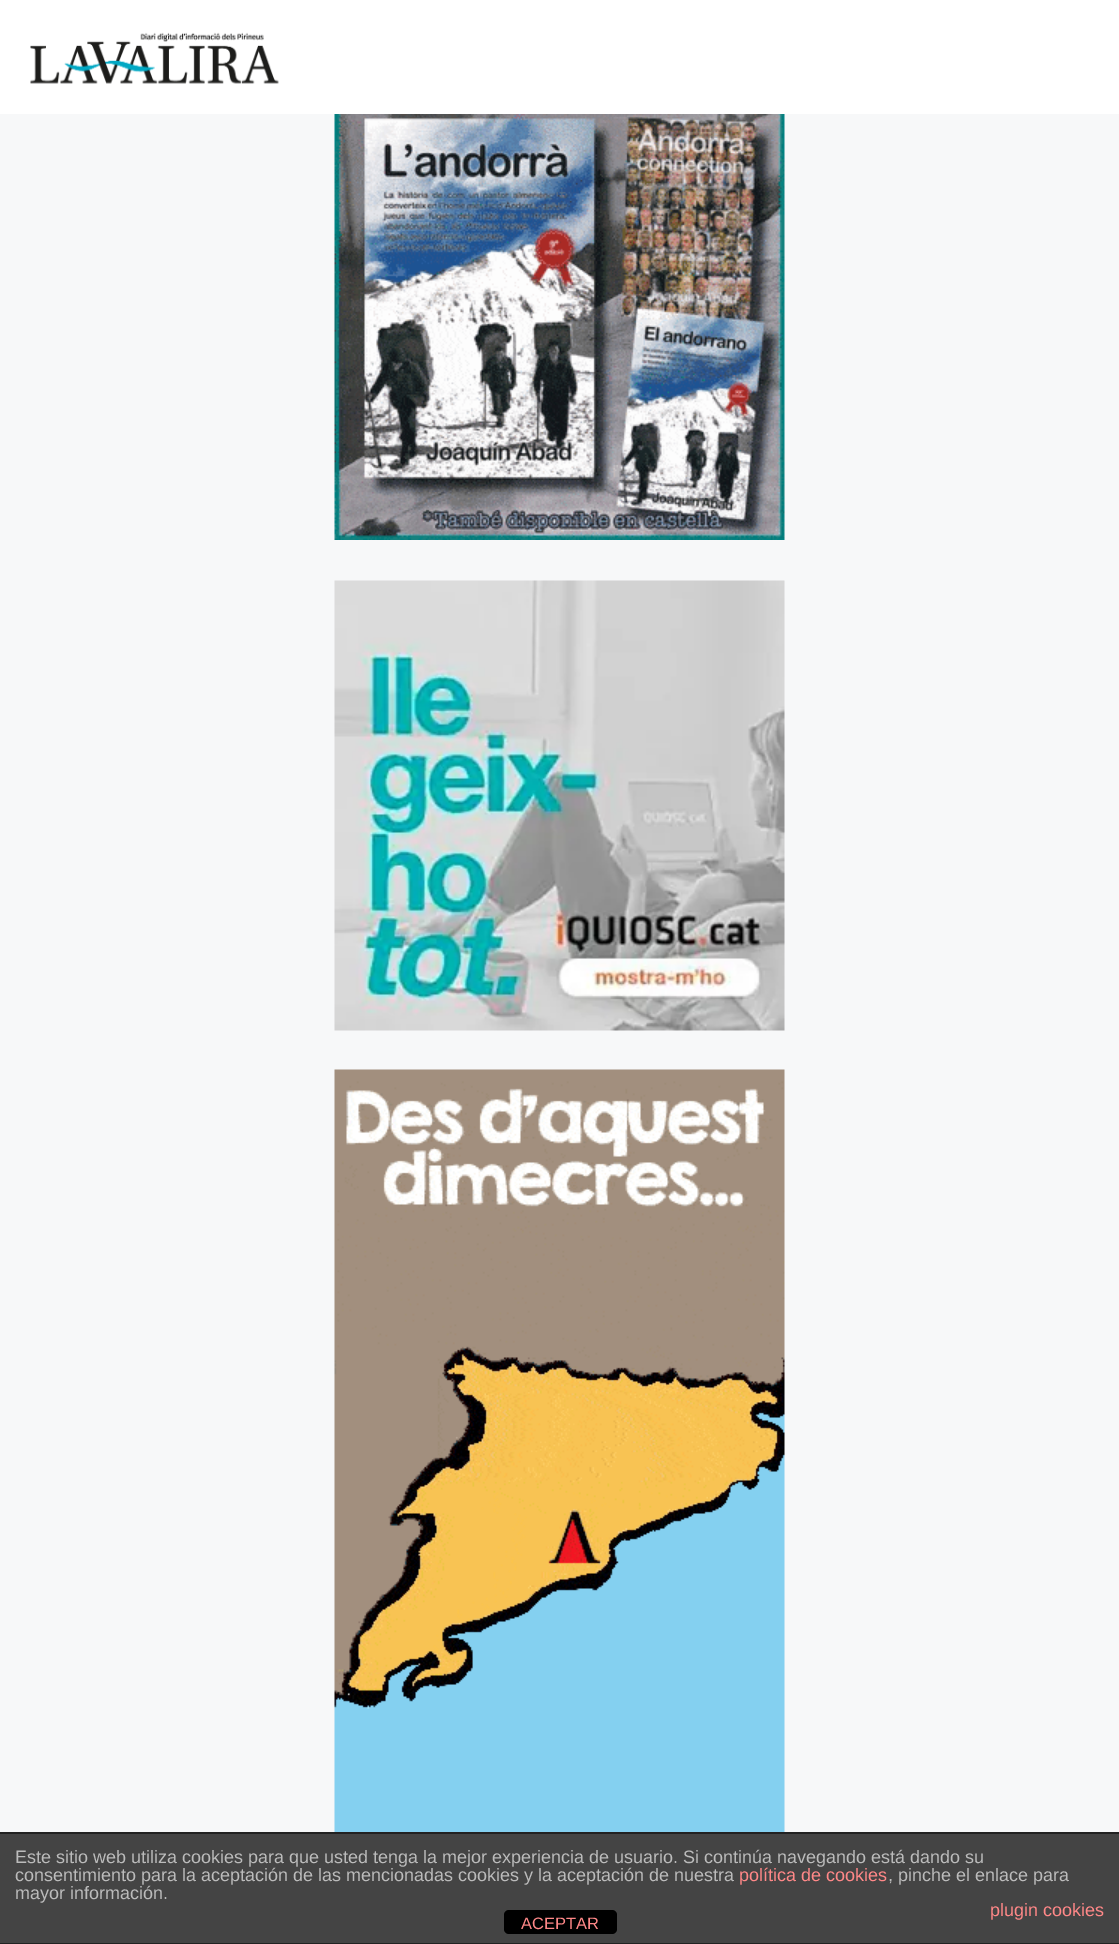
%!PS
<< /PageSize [1119 1944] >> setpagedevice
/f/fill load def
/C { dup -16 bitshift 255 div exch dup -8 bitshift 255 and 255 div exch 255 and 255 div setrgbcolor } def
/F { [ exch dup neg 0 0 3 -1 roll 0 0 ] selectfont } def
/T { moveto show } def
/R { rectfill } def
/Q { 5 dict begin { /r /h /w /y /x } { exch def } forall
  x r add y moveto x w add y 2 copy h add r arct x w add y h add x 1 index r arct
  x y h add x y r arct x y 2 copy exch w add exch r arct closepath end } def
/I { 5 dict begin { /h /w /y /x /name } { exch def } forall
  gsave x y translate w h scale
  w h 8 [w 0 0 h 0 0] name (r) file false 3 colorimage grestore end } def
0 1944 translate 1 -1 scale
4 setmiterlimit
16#F7F8F9 C
0 0 1119 1944 R
16#FFFFFF C
0 0 1119 114 R
(1.rgb) 30 32 249 52 I
(2.rgb) 334 114 451 426 I
(3.rgb) 334 580 451 451 I
(4.rgb) 334 1069 451 763 I
16#444444 C
0 1834 1119 109 R
16#222222 C
0 1832 1119 2 R
0 1943 1119 1 R
/LiberationSans-Regular 18 F
16#BBBBBB C
(Este sitio web utiliza cookies para que usted tenga la mejor experiencia de usuario. Si continúa navegando está dando su) 15 1863 T
(consentimiento para la aceptación de las mencionadas cookies y la aceptación de nuestra) 15 1881 T
16#FF8888 C
(política de cookies) 739 1881 T
16#BBBBBB C
(, pinche el enlace para) 888 1881 T
(mayor información.) 15 1899 T
16#FF8888 C
(plugin cookies) 990 1916 T
16#000000 C
504 1910 113 24 5 Q f
/LiberationSans-Regular 16.5 F
16#FF8888 C
(ACEPTAR) 521 1929 T
showpage
